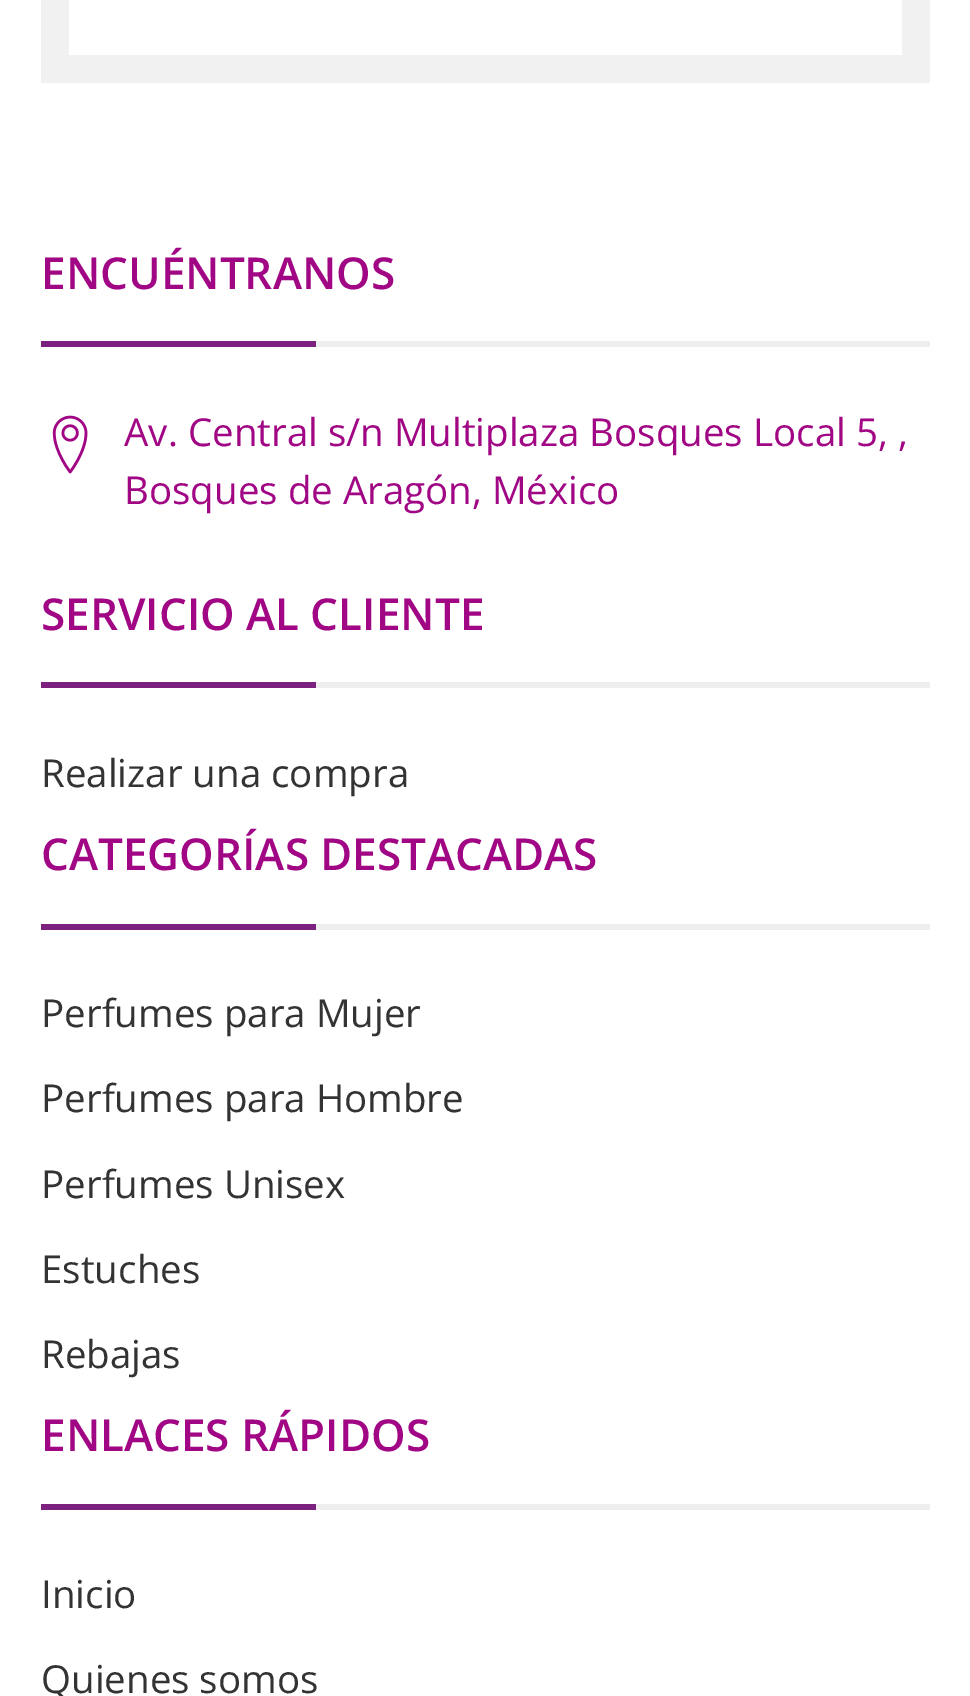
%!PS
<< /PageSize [970 1696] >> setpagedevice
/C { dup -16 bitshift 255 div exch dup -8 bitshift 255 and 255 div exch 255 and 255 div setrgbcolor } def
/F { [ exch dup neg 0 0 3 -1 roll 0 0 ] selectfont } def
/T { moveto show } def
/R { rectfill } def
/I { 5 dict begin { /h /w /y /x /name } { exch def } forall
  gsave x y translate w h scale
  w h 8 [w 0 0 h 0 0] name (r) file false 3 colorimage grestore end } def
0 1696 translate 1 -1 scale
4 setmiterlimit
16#FFFFFF C
0 0 970 1696 R
16#F1F1F1 C
41 0 889 83 R
16#FFFFFF C
69 0 833 55 R
16#EEEEEE C
316 341 614 6 R
/OpenSans-SemiBold 44 F
16#A10684 C
(ENCUÉNTRANOS) 41 289 T
16#7D2181 C
41 341 275 6 R
(1.rgb) 52 415 36 59 I
/OpenSans-Regular 38.5 F
16#A10684 C
(Av. Central s/n Multiplaza Bosques Local 5, ,) 124 446 T
(Bosques de Aragón, México) 124 504 T
16#EEEEEE C
316 682 614 6 R
/OpenSans-SemiBold 44 F
16#A10684 C
(SERVICIO AL CLIENTE) 41 630 T
16#7D2181 C
41 682 275 6 R
/OpenSans-Regular 38.5 F
16#333333 C
(Realizar una compra) 41 787 T
16#EEEEEE C
316 924 614 6 R
/OpenSans-SemiBold 44 F
16#A10684 C
(CATEGORÍAS DESTACADAS) 41 870 T
16#7D2181 C
41 924 275 6 R
/OpenSans-Regular 38.5 F
16#333333 C
(Perfumes para Mujer) 41 1027 T
(Perfumes para Hombre) 41 1112 T
(Perfumes Unisex) 41 1198 T
(Estuches) 41 1283 T
(Rebajas) 41 1368 T
16#EEEEEE C
316 1504 614 6 R
/OpenSans-SemiBold 44 F
16#A10684 C
(ENLACES RÁPIDOS) 41 1451 T
16#7D2181 C
41 1504 275 6 R
/OpenSans-Regular 38.5 F
16#333333 C
(Inicio) 41 1608 T
(Quienes somos) 41 1693 T
showpage
